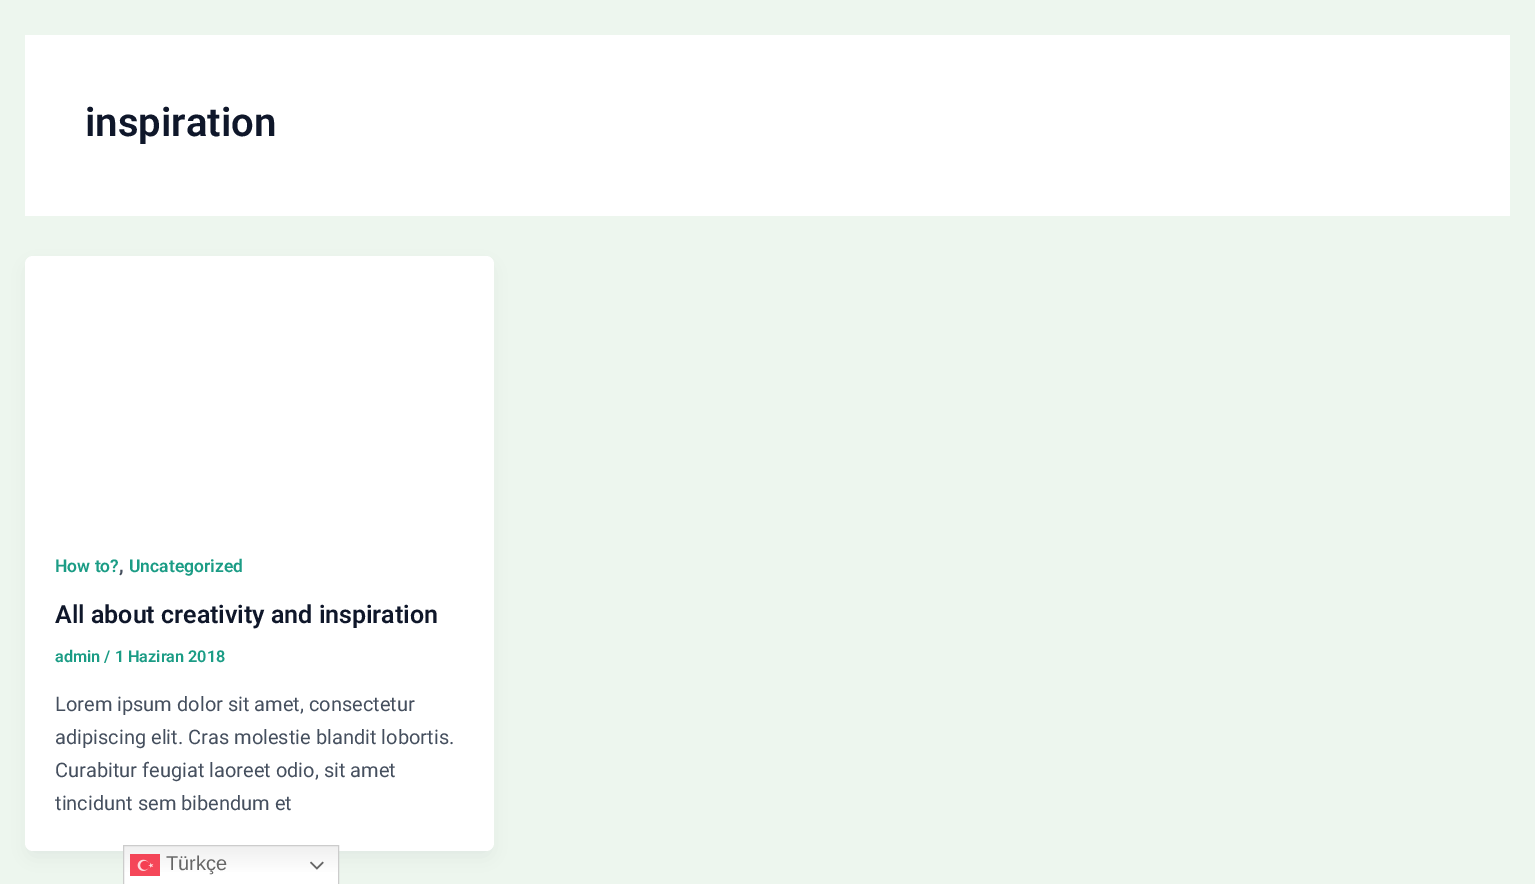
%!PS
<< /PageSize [1535 884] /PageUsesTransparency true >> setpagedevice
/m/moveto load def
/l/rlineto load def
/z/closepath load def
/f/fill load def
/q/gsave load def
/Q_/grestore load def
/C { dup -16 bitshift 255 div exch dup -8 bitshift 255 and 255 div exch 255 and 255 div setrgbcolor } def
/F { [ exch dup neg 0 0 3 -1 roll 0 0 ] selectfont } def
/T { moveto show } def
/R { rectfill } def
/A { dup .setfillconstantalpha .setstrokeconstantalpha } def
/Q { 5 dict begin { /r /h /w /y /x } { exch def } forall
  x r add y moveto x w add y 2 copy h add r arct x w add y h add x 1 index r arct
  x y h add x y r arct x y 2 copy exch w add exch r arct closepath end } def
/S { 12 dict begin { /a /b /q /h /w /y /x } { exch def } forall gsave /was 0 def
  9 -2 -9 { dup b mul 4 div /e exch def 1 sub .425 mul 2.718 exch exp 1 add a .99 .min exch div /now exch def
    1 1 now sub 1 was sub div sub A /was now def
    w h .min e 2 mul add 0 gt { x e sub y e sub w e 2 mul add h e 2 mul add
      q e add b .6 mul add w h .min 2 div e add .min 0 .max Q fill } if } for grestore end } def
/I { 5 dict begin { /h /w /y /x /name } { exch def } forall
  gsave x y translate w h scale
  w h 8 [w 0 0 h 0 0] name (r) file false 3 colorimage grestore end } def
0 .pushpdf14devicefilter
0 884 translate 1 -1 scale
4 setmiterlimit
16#EDF6EE C
0 0 1535 884 R
16#FFFFFF C
25 35 1485 181 R
/Roboto-SemiBold 40 F
16#0F172A C
(inspiration) 85 136 T
16#101828 C
28 266 463 590 5 9.5 .05 S
16#FFFFFF C
25 256 469 595 8 Q f
/Roboto-SemiBold 17.5 F
16#1B9C85 C
(How to?) 55 572 T
/Roboto-SemiBold 20 F
16#454F5E C
(,) 119 572 T
/Roboto-SemiBold 17.5 F
16#1B9C85 C
(Uncategorized) 129 572 T
/Roboto-SemiBold 25 F
16#0F172A C
(All about creativity and inspiration) 55 623 T
/Roboto-SemiBold 16.25 F
16#1B9C85 C
(admin / 1 Haziran 2018) 55 662 T
/Roboto-Regular 20 F
16#454F5E C
(Lorem ipsum dolor sit amet, consectetur) 55 711 T
(adipiscing elit. Cras molestie blandit lobortis.) 55 744 T
(Curabitur feugiat laoreet odio, sit amet) 55 777 T
(tincidunt sem bibendum et) 55 810 T
q 124 846 m 214 0 l 0 38 l -214 0 l z clip newpath
<< /ShadingType 2 /ColorSpace /DeviceRGB /Coords [231 845 231 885] /Extend [true true] /Function << /FunctionType 3 /Domain [0 1] /Functions [<< /FunctionType 2 /Domain [0 1] /C0 [.937 .937 .937] /C1 [1 1 1] /N 1 >> << /FunctionType 2 /Domain [0 1] /C0 [1 1 1] /C1 [1 1 1] /N 1 >>] /Bounds [.7] /Encode [0 1 0 1] >> >> shfill Q_
16#CCCCCC C
123.5 845.5 215 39 rectstroke
(1.rgb) 130 854 30 22 I
/LiberationSans-Regular 20 F
16#666666 C
(Türkçe) 166 870 T
(2.rgb) 310 861 14 9 I
.poppdf14devicefilter showpage
